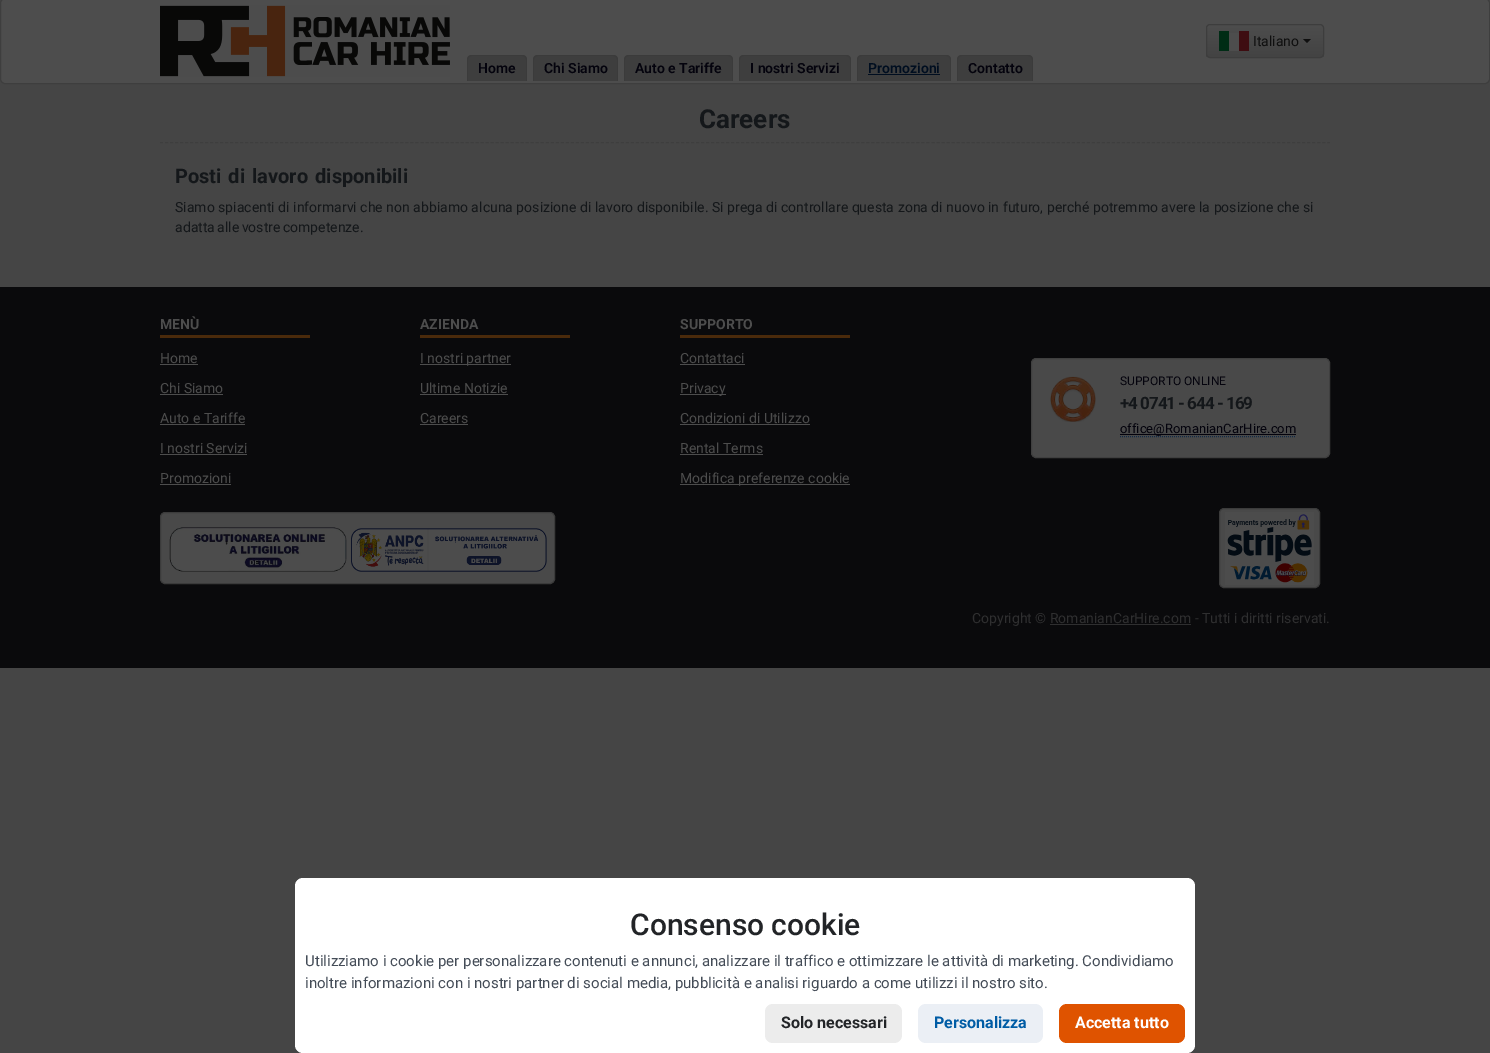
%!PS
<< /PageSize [1490 1053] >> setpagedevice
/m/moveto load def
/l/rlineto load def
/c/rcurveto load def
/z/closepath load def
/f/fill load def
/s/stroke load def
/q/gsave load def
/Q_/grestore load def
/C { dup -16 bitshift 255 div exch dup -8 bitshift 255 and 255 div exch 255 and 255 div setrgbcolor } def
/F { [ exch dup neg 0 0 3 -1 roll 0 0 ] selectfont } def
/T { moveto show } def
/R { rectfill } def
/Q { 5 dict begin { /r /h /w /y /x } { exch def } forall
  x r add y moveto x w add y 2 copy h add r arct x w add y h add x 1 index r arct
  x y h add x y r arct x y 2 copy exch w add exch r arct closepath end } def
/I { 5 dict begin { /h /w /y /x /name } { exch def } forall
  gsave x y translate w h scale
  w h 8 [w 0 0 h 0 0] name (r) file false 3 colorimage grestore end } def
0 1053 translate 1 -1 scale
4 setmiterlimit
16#454545 C
0 0 1490 1053 R
16#4D4D4D C
.5 -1.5 1489 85 4.5 Q q f Q_
16#3E3E3E C
s
(1.rgb) 160 5 290 72 I
q
1206 24 118 34 4 Q clip newpath
q 1206 25 m 118 0 l 0 32 l -118 0 l z clip newpath
<< /ShadingType 2 /ColorSpace /DeviceRGB /Coords [1265 25 1265 57] /Extend [true true] /Function << /FunctionType 2 /Domain [0 1] /C0 [.302 .302 .302] /C1 [.263 .263 .263] /N 1 >> >> shfill Q_
Q_
16#3D3D3D C
1206.5 24.5 117 33 3.5 Q s
16#002C15 C
1219 31 10 20 R
16#4D4D4D C
1229 33 10 18 R
16#3E0D11 C
1239 31 10 20 R
/Roboto-Regular 14 F
16#0F0F0F C
(Italiano) 1253 46 T
1303 39 m 8 0 l -4 4 l z f
16#3E3E3E C
472 55 m 50 0 l 3 0 5 2 5 5 c 0 21 l -60 0 l 0 -21 l 0 -3 2 -5 5 -5 c z f
16#3B3B3B C
472 55 m 50 0 l 3 0 5 2 5 5 c 0 21 l -60 0 l 0 -21 l 0 -3 2 -5 5 -5 c z 472 56 m 50 0 l 2 0 4 2 4 4 c 0 21 l -58 0 l 0 -21 l 0 -2 2 -4 4 -4 c z eofill
/Roboto-SemiBold 14 F
16#04030D C
(Home) 478 73 T
16#3E3E3E C
538 55 m 75 0 l 3 0 5 2 5 5 c 0 21 l -85 0 l 0 -21 l 0 -3 2 -5 5 -5 c z f
16#3B3B3B C
538 55 m 75 0 l 3 0 5 2 5 5 c 0 21 l -85 0 l 0 -21 l 0 -3 2 -5 5 -5 c z 538 56 m 75 0 l 2 0 4 2 4 4 c 0 21 l -83 0 l 0 -21 l 0 -2 2 -4 4 -4 c z eofill
16#04030D C
(Chi Siamo) 544 73 T
16#3E3E3E C
629 55 m 99 0 l 3 0 5 2 5 5 c 0 21 l -109 0 l 0 -21 l 0 -3 2 -5 5 -5 c z f
16#3B3B3B C
629 55 m 99 0 l 3 0 5 2 5 5 c 0 21 l -109 0 l 0 -21 l 0 -3 2 -5 5 -5 c z 629 56 m 99 0 l 2 0 4 2 4 4 c 0 21 l -107 0 l 0 -21 l 0 -2 2 -4 4 -4 c z eofill
16#04030D C
(Auto e Tariffe) 635 73 T
16#3E3E3E C
744 55 m 102 0 l 3 0 5 2 5 5 c 0 21 l -112 0 l 0 -21 l 0 -3 2 -5 5 -5 c z f
16#3B3B3B C
744 55 m 102 0 l 3 0 5 2 5 5 c 0 21 l -112 0 l 0 -21 l 0 -3 2 -5 5 -5 c z 744 56 m 102 0 l 2 0 4 2 4 4 c 0 21 l -110 0 l 0 -21 l 0 -2 2 -4 4 -4 c z eofill
16#04030D C
(I nostri Servizi) 750 73 T
16#3E3E3E C
862 55 m 84 0 l 3 0 5 2 5 5 c 0 21 l -94 0 l 0 -21 l 0 -3 2 -5 5 -5 c z f
16#3B3B3B C
862 55 m 84 0 l 3 0 5 2 5 5 c 0 21 l -94 0 l 0 -21 l 0 -3 2 -5 5 -5 c z 862 56 m 84 0 l 2 0 4 2 4 4 c 0 21 l -92 0 l 0 -21 l 0 -2 2 -4 4 -4 c z eofill
16#000E20 C
(Promozioni) 868 73 T
868 74 72 1 R
16#3E3E3E C
962 55 m 66 0 l 3 0 5 2 5 5 c 0 21 l -76 0 l 0 -21 l 0 -3 2 -5 5 -5 c z f
16#3B3B3B C
962 55 m 66 0 l 3 0 5 2 5 5 c 0 21 l -76 0 l 0 -21 l 0 -3 2 -5 5 -5 c z 962 56 m 66 0 l 2 0 4 2 4 4 c 0 21 l -74 0 l 0 -21 l 0 -2 2 -4 4 -4 c z eofill
16#04030D C
(Contatto) 968 73 T
16#3E3E3E C
[3 2.01] 0 setdash
160 142.5 m 1170 0 l s
/Roboto-Bold 26 F
16#14171A C
(Careers) 699 128 T
/Roboto-Bold 20 F
175 183 m 2 0 32 (Posti di lavoro disponibili) widthshow
/Roboto-Regular 14 F
175 212 m .1 0 32 (Siamo spiacenti di informarvi che non abbiamo alcuna posizione di lavoro disponibile. Si prega di controllare questa zona di nuovo in futuro, perché potremmo avere la posizione che si) widthshow
175 232 m -1 0 32 (adatta alle vostre competenze.) widthshow
16#0A0A0C C
0 287 1490 381 R
16#4A2A0B C
160 335 150 3 R
/Roboto-Bold 14 F
16#4D4D4D C
(MENÙ) 160 329 T
/Roboto-Regular 14 F
(Home) 160 363 T
160 364 38 1 R
(Chi Siamo) 160 393 T
160 394 63 1 R
(Auto e Tariffe) 160 423 T
160 424 85 1 R
(I nostri Servizi) 160 453 T
160 454 87 1 R
(Promozioni) 160 483 T
160 484 71 1 R
16#4A2A0B C
420 335 150 3 R
/Roboto-Bold 14 F
16#4D4D4D C
(AZIENDA) 420 329 T
420 364 91 1 R
/Roboto-Regular 14 F
(I nostri partner) 420 363 T
(Ultime Notizie) 420 393 T
420 394 88 1 R
(Careers) 420 423 T
420 424 48 1 R
16#4A2A0B C
680 335 170 3 R
/Roboto-Bold 14 F
16#4D4D4D C
(SUPPORTO) 680 329 T
/Roboto-Regular 14 F
(Contattaci) 680 363 T
680 364 65 1 R
680 394 46 1 R
(Privacy) 680 393 T
(Condizioni di Utilizzo) 680 423 T
680 424 130 1 R
(Rental Terms) 680 453 T
680 454 83 1 R
680 484 170 1 R
(Modifica preferenze cookie) 680 483 T
16#494949 C
1031.5 358.5 298 99 4.5 Q q f Q_
16#3F3F3F C
[] 0 setdash
s
(2.rgb) 1050 376 46 46 I
/Roboto-Regular 12 F
16#04030D C
(SUPPORTO ONLINE) 1120 385 T
/Roboto-Bold 17 F
16#14171A C
1120 409 m -1 0 (+4 0741 - 644 - 169) ashow
16#04030D C
1120 434 176 1 R
/Roboto-Regular 13 F
(office@RomanianCarHire.com) 1120 433 T
16#112B48 C
[1 1] 0 setdash
1120 436.5 m 176 0 l s
16#494949 C
160.5 512.5 394 71 4.5 Q q f Q_
16#3B3B3B C
[] 0 setdash
s
(3.rgb) 169 527 178 45 I
(4.rgb) 351 528 196 44 I
16#494949 C
1219.5 508.5 100 79 4.5 Q q f Q_
16#3B3B3B C
s
(5.rgb) 1225 512 89 73 I
/Roboto-Regular 14 F
16#2F2F30 C
(Copyright © RomanianCarHire.com - Tutti i diritti riservati.) 972 623 T
1050 624 141 1 R
16#FFFFFF C
295 878 900 175 8 Q f
/Roboto-Medium 30 F
16#222427 C
(Consenso cookie) 630 935 T
/Roboto-Regular 15 F
16#444C57 C
(Utilizziamo i cookie per personalizzare contenuti e annunci, analizzare il traffico e ottimizzare le attività di marketing. Condividiamo) 305 966 T
(inoltre informazioni con i nostri partner di social media, pubblicità e analisi riguardo a come utilizzi il nostro sito.) 305 988 T
16#ECECEC C
765 1004 137 39 8 Q f
/Roboto-Bold 16 F
16#222427 C
(Solo necessari) 781 1028 T
16#EBEFF5 C
918 1004 125 39 8 Q f
16#005CA5 C
(Personalizza) 934 1028 T
16#DF5300 C
1059 1004 126 39 8 Q f
16#FFFFFF C
(Accetta tutto) 1075 1028 T
showpage
